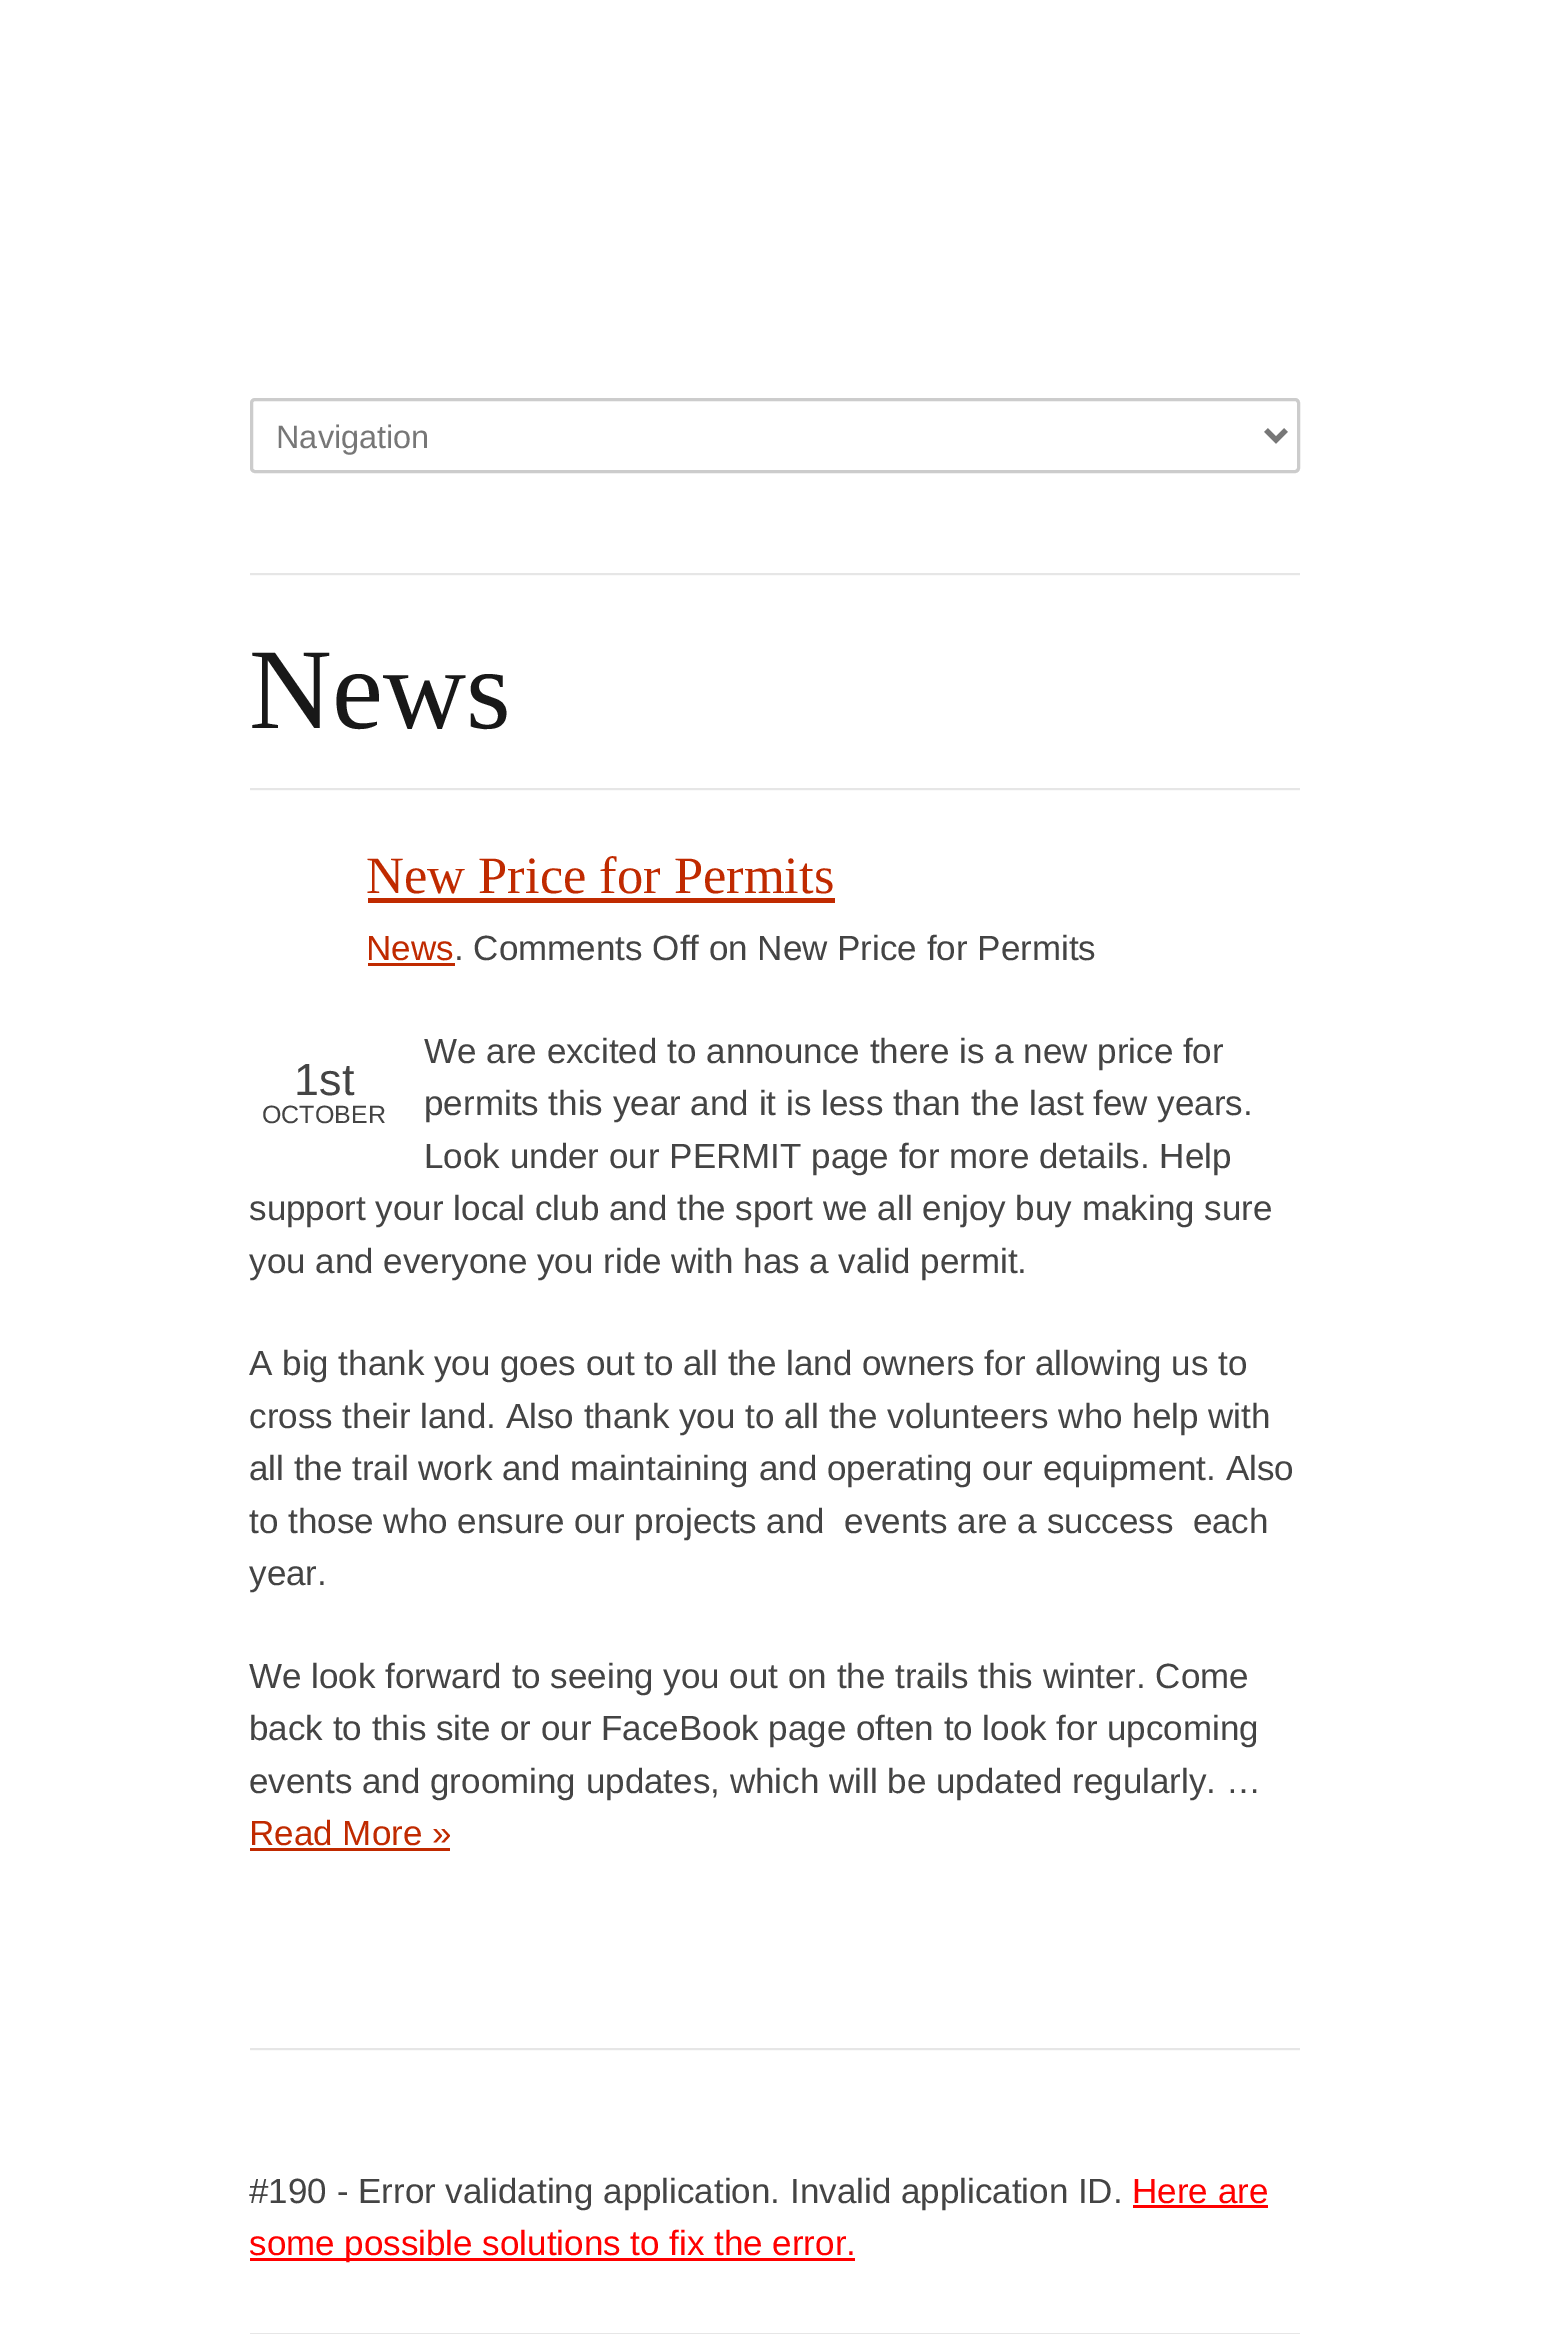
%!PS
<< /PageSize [1547 2334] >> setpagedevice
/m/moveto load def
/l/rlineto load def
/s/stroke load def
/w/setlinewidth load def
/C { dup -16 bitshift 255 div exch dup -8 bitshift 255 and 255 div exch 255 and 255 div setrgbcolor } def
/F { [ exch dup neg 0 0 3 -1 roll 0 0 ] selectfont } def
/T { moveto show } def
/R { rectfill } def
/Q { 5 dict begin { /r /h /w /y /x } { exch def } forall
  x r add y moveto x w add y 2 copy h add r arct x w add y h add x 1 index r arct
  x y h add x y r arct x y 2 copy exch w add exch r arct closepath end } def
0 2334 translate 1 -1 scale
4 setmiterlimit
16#FFFFFF C
0 0 1547 2334 R
16#CCCCCC C
3 w
251.5 399.5 1047 72 3.5 Q s
16#777777 C
5 w
1266 430 m 10 10 l 10 -10 l s
/LiberationSans-Regular 32.5 F
(Navigation) 276 448 T
16#E6E6E6 C
250 573 1050 2 R
16#FAFAFA C
250 575 1050 1 R
/LiberationSerif-Regular 115 F
16#181818 C
(News) 249 728 T
16#E6E6E6 C
250 788 1050 2 R
16#FAFAFA C
250 790 1050 1 R
/LiberationSerif-Regular 52.5 F
16#C02A00 C
(New Price for Permits) 366 893 T
368 898 467 5 R
/LiberationSans-Regular 35 F
(News) 366 960 T
368 963 87 3 R
16#444444 C
(. Comments Off on New Price for Permits) 454 960 T
(We are excited to announce there is a new price for) 424 1063 T
(permits this year and it is less than the last few years.) 424 1115 T
(Look under our PERMIT page for more details. Help) 424 1168 T
(support your local club and the sport we all enjoy buy making sure) 249 1220 T
(you and everyone you ride with has a valid permit.) 249 1273 T
/LiberationSans-Regular 45 F
(1st) 294 1095 T
/LiberationSans-Regular 25 F
(OCTOBER) 262 1123 T
/LiberationSans-Regular 35 F
(A big thank you goes out to all the land owners for allowing us to) 249 1375 T
(cross their land. Also thank you to all the volunteers who help with) 249 1428 T
(all the trail work and maintaining and operating our equipment. Also) 249 1480 T
(to those who ensure our projects and  events are a success  each) 249 1533 T
(year.) 249 1585 T
(We look forward to seeing you out on the trails this winter. Come) 249 1688 T
(back to this site or our FaceBook page often to look for upcoming) 249 1740 T
(events and grooming updates, which will be updated regularly. …) 249 1793 T
16#C02A00 C
(Read More ») 249 1845 T
250 1848 200 3 R
16#E6E6E6 C
250 2048 1050 2 R
16#FAFAFA C
250 2050 1050 1 R
16#444444 C
(#190 - Error validating application. Invalid application ID.) 249 2203 T
16#FF0000 C
(Here are) 1132 2203 T
1133 2205 135 3 R
250 2258 605 3 R
(some possible solutions to fix the error.) 249 2255 T
16#E6E6E6 C
250 2333 1050 1 R
showpage
